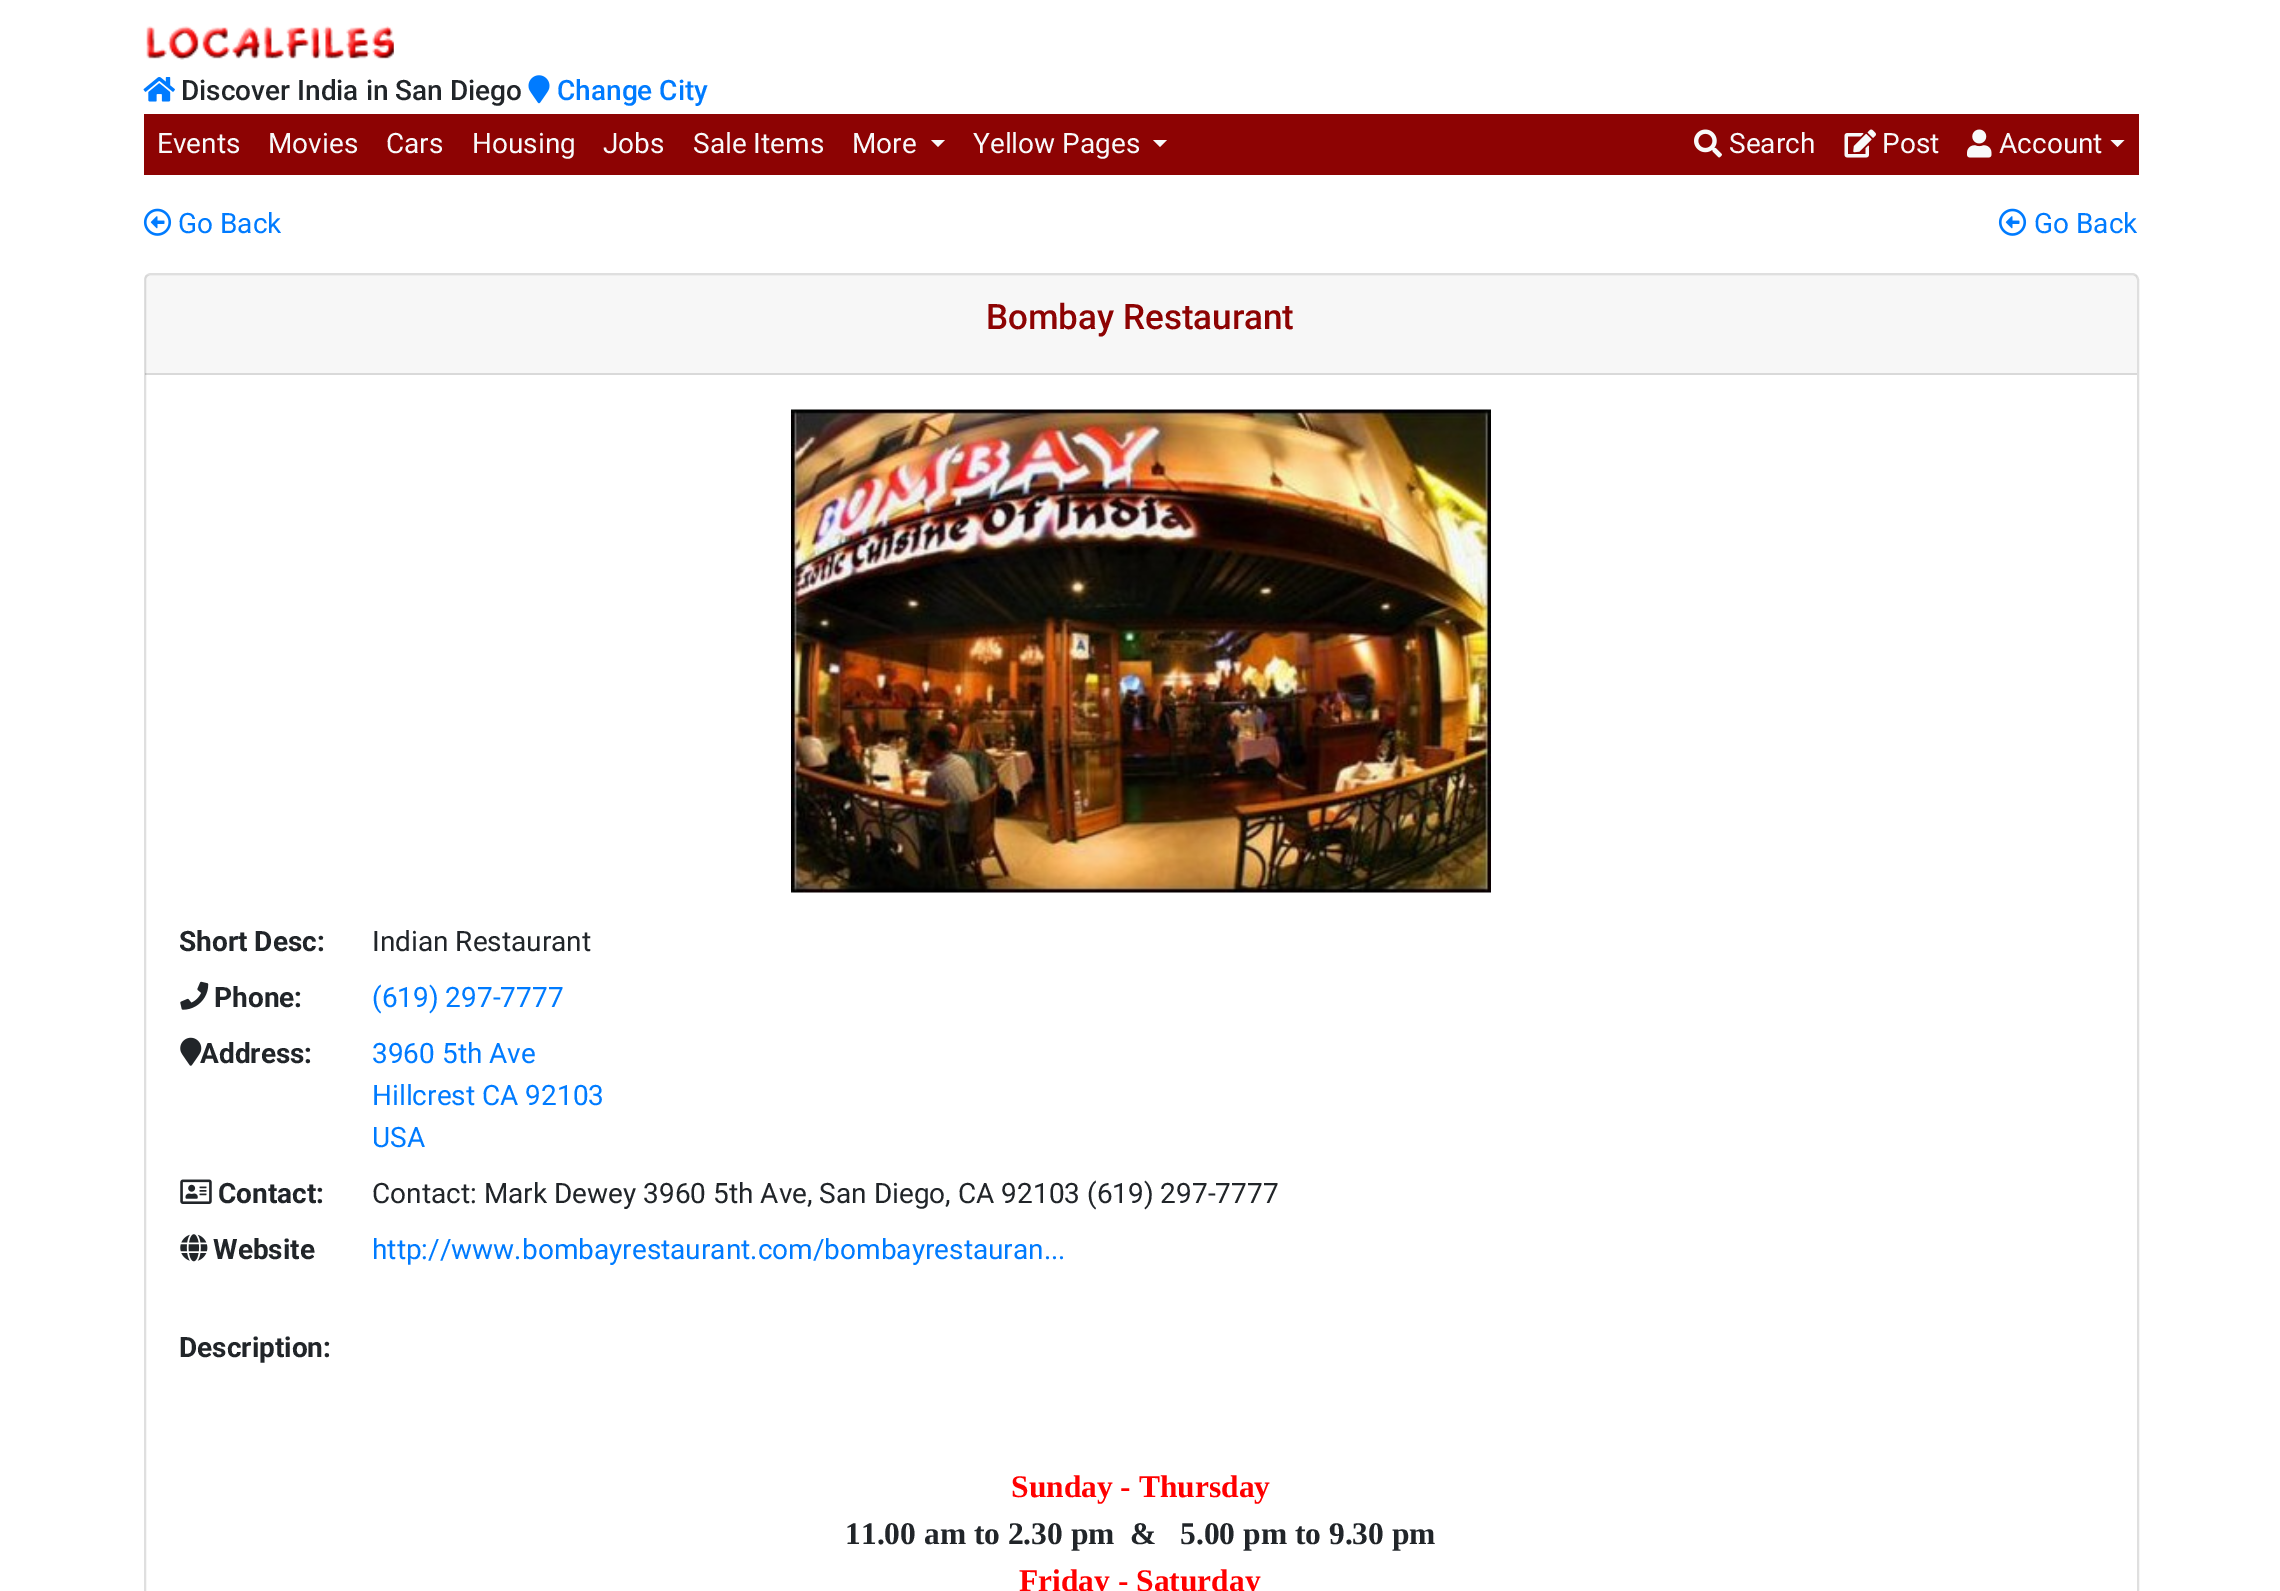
%!PS
<< /PageSize [2280 1591] /PageUsesTransparency true >> setpagedevice
/m/moveto load def
/l/rlineto load def
/z/closepath load def
/f/fill load def
/s/stroke load def
/w/setlinewidth load def
/C { dup -16 bitshift 255 div exch dup -8 bitshift 255 and 255 div exch 255 and 255 div setrgbcolor } def
/F { [ exch dup neg 0 0 3 -1 roll 0 0 ] selectfont } def
/T { moveto show } def
/R { rectfill } def
/A { dup .setfillconstantalpha .setstrokeconstantalpha } def
/Q { 5 dict begin { /r /h /w /y /x } { exch def } forall
  x r add y moveto x w add y 2 copy h add r arct x w add y h add x 1 index r arct
  x y h add x y r arct x y 2 copy exch w add exch r arct closepath end } def
/I { 5 dict begin { /h /w /y /x /name } { exch def } forall
  gsave x y translate w h scale
  w h 8 [w 0 0 h 0 0] name (r) file false 3 colorimage grestore end } def
0 .pushpdf14devicefilter
0 1591 translate 1 -1 scale
4 setmiterlimit
16#FFFFFF C
0 0 2280 1591 R
(1.rgb) 146 26 248 34 I
(2.rgb) 143 77 32 25 I
/Roboto-Medium 28 F
16#212529 C
(Discover India in San Diego) 181 100 T
(3.rgb) 528 75 22 29 I
16#007BFF C
(Change City) 557 100 T
16#8D0303 C
144 114 1995 61 R
/Roboto-Regular 28 F
16#F8F9FA C
(Events) 157 153 T
(Movies) 268 153 T
(Cars) 386 153 T
(Housing) 472 153 T
(Jobs) 603 153 T
(Sale Items) 693 153 T
(More) 852 153 T
931 140 m 14 0 l -7 7 l z f
(Yellow Pages) 973 153 T
1153 140 m 14 0 l -7 7 l z f
(4.rgb) 1694 129 28 29 I
(Search) 1729 153 T
(5.rgb) 1844 129 32 29 I
(Post) 1882 153 T
(6.rgb) 1967 129 25 29 I
(Account) 1999 153 T
2110.5 140 m 14 0 l -7 7 l z f
(7.rgb) 143 208 29 28 I
16#007BFF C
(Go Back) 178 233 T
(7.rgb) 1998 208 29 28 I
(Go Back) 2034 233 T
16#DFDFDF C
2 w
145 274 1993 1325 6 Q s
0.03 A
16#000000 C
145 275 1992 100 R
0.12 A
145 373 1992 2 R
/Roboto-Medium 35 F
1 A
16#8D0303 C
(Bombay Restaurant) 986 329 T
(8.rgb) 791 409 700 484 I
/Roboto-Bold 28 F
16#212529 C
(Short Desc:) 179 951 T
/Roboto-Regular 28 F
(Indian Restaurant) 372 951 T
(9.rgb) 180 981 29 29 I
/Roboto-Bold 28 F
(Phone:) 214 1007 T
/Roboto-Regular 28 F
16#007BFF C
(\(619\) 297-7777) 372 1007 T
(10.rgb) 180 1037 22 29 I
/Roboto-Bold 28 F
16#212529 C
(Address:) 200 1063 T
/Roboto-Regular 28 F
16#007BFF C
(3960 5th Ave) 372 1063 T
(Hillcrest CA 92103) 372 1105 T
(USA) 372 1147 T
(11.rgb) 180 1179 32 25 I
/Roboto-Bold 28 F
16#212529 C
(Contact:) 218 1203 T
/Roboto-Regular 28 F
(Contact: Mark Dewey 3960 5th Ave, San Diego, CA 92103 \(619\) 297-7777) 372 1203 T
(12.rgb) 180 1234 28 28 I
/Roboto-Bold 28 F
(Website) 213 1259 T
/Roboto-Regular 28 F
16#007BFF C
(http://www.bombayrestaurant.com/bombayrestauran...) 372 1259 T
/Roboto-Bold 28 F
16#212529 C
(Description:) 179 1357 T
/LiberationSerif-Bold 31.5 F
16#FF0000 C
(Sunday - Thursday) 1011 1497 T
16#212529 C
(11.00 am to 2.30 pm  &   5.00 pm to 9.30 pm) 845 1544 T
16#FF0000 C
(Friday - Saturday) 1019 1591 T
.poppdf14devicefilter showpage
